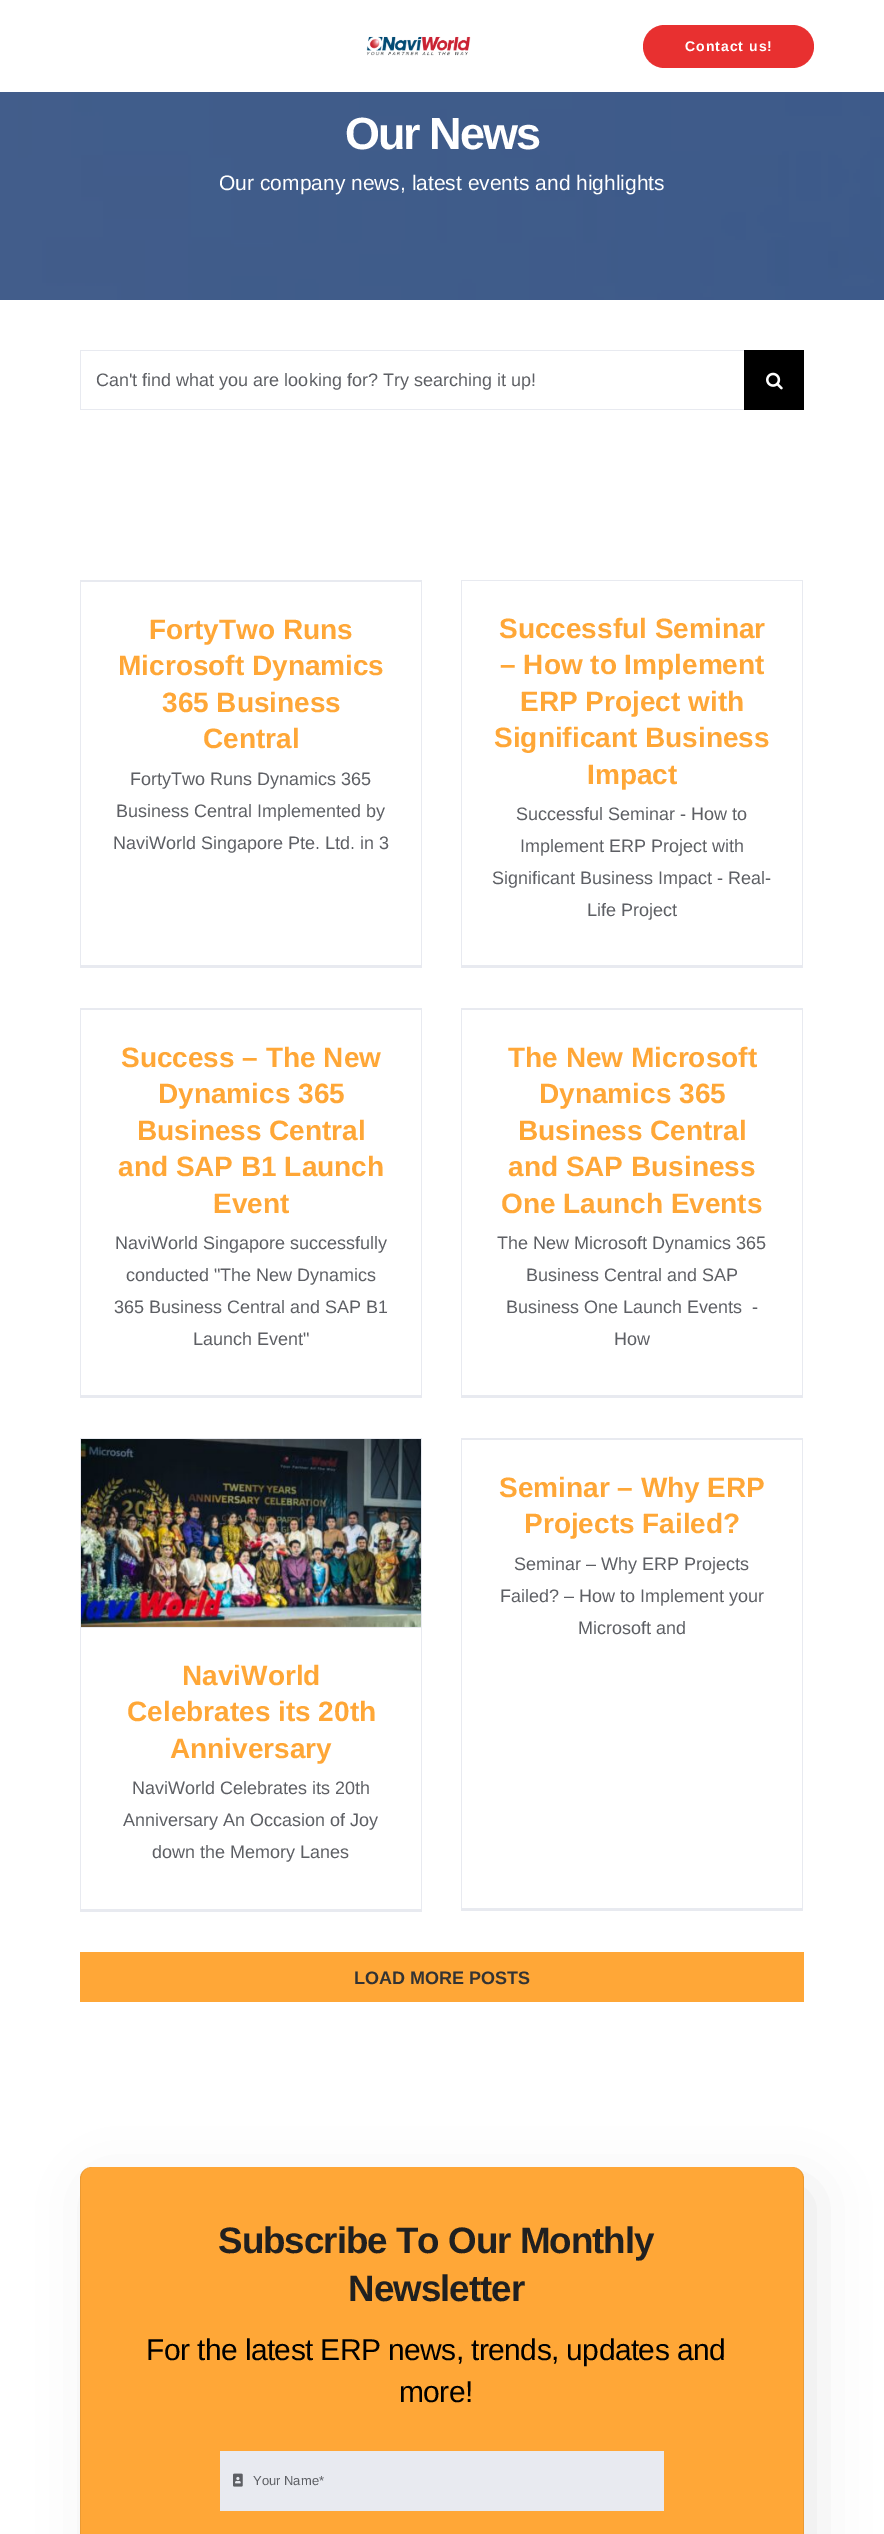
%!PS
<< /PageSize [884 2534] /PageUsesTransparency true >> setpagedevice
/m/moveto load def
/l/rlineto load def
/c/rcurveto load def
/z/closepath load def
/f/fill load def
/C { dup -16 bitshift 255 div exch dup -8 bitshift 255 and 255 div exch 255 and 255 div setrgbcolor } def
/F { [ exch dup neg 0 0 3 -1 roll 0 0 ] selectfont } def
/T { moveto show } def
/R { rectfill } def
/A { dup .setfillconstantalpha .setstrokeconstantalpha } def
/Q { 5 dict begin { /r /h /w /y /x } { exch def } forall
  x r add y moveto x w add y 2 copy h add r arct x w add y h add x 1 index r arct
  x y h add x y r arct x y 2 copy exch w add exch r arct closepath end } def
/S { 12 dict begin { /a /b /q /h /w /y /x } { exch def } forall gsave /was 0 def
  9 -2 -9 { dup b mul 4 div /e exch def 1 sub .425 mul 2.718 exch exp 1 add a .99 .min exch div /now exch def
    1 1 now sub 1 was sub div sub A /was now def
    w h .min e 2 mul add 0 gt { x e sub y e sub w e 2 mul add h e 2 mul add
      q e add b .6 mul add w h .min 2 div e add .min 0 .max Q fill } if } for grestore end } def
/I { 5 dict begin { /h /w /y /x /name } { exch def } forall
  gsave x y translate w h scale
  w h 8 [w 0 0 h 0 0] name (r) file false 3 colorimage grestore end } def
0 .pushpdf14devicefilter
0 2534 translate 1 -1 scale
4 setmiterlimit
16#FFFFFF C
0 0 884 2534 R
(1.rgb) 366 36 105 20 I
16#E83030 C
643 25 171 43 21.5 Q f
/LiberationSans-Bold 14 F
16#FFFFFF C
685 51 m 1 0 (Contact us!) ashow
(2.rgb) 0 92 884 208 I
/LiberationSans-Bold 45 F
345 149 m -2 0 (Our News) ashow
/LiberationSans-Regular 21 F
(Our company news, latest events and highlights) 219 190 T
16#E8EAF0 C
80 350 664 1 R
80 409 664 1 R
80 350 1 60 R
/LiberationSans-Regular 18 F
16#5D5F64 C
(Can't find what you are looking for? Try searching it up!) 96 386 T
16#000000 C
744 350 60 60 R
(3.rgb) 766 372 17 18 I
16#E8EAF0 C
80 580 342 1 R
421 580 1 388 R
80 965 342 3 R
80 580 1 388 R
81 581 340 1 R
/LiberationSans-Bold 28 F
16#FFA737 C
(FortyTwo Runs) 149 639 T
(Microsoft Dynamics) 118 675 T
(365 Business) 162 712 T
(Central) 203 748 T
/LiberationSans-Regular 18 F
16#5D5F64 C
(FortyTwo Runs Dynamics 365) 130 785 T
(Business Central Implemented by) 116 817 T
(NaviWorld Singapore Pte. Ltd. in 3) 113 849 T
16#E8EAF0 C
461 580 342 1 R
802 580 1 388 R
461 965 342 3 R
461 580 1 388 R
/LiberationSans-Bold 28 F
16#FFA737 C
(Successful Seminar) 499 638 T
(– How to Implement) 500 674 T
(ERP Project with) 520 711 T
(Significant Business) 494 747 T
(Impact) 587 784 T
/LiberationSans-Regular 18 F
16#5D5F64 C
(Successful Seminar - How to) 516 820 T
(Implement ERP Project with) 520 852 T
(Significant Business Impact - Real-) 492 884 T
(Life Project) 587 916 T
16#E8EAF0 C
80 1008 342 1 R
421 1008 1 390 R
80 1395 342 3 R
80 1008 1 390 R
81 1009 340 1 R
/LiberationSans-Bold 28 F
16#FFA737 C
(Success – The New) 121 1067 T
(Dynamics 365) 158 1103 T
(Business Central) 137 1140 T
(and SAP B1 Launch) 118 1176 T
(Event) 213 1213 T
/LiberationSans-Regular 18 F
16#5D5F64 C
(NaviWorld Singapore successfully) 115 1249 T
(conducted "The New Dynamics) 126 1281 T
(365 Business Central and SAP B1) 114 1313 T
(Launch Event") 193 1345 T
16#E8EAF0 C
461 1008 342 1 R
802 1008 1 390 R
461 1395 342 3 R
461 1008 1 390 R
462 1009 340 1 R
/LiberationSans-Bold 28 F
16#FFA737 C
(The New Microsoft) 508 1067 T
(Dynamics 365) 539 1103 T
(Business Central) 518 1140 T
(and SAP Business) 508 1176 T
(One Launch Events) 501 1213 T
/LiberationSans-Regular 18 F
16#5D5F64 C
(The New Microsoft Dynamics 365) 497 1249 T
(Business Central and SAP) 526 1281 T
(Business One Launch Events  -) 506 1313 T
(How) 614 1345 T
16#E8EAF0 C
461 1438 342 1 R
802 1438 1 473 R
461 1908 342 3 R
461 1438 1 473 R
462 1439 340 1 R
/LiberationSans-Bold 28 F
16#FFA737 C
(Seminar – Why ERP) 499 1497 T
(Projects Failed?) 524 1533 T
/LiberationSans-Regular 18 F
16#5D5F64 C
(Seminar – Why ERP Projects) 514 1570 T
(Failed? – How to Implement your) 500 1602 T
(Microsoft and) 578 1634 T
16#E8EAF0 C
80 1438 342 1 R
421 1438 1 474 R
80 1909 342 3 R
80 1438 1 474 R
81 1627 340 1 R
(4.rgb) 81 1439 340 188 I
/LiberationSans-Bold 28 F
16#FFA737 C
(NaviWorld) 182 1685 T
(Celebrates its 20th) 127 1721 T
(Anniversary) 170 1758 T
/LiberationSans-Regular 18 F
16#5D5F64 C
(NaviWorld Celebrates its 20th) 132 1794 T
(Anniversary An Occasion of Joy) 123 1826 T
(down the Memory Lanes) 152 1858 T
16#FFA737 C
80 1952 724 50 R
/LiberationSans-Bold 18 F
16#333333 C
(LOAD MORE POSTS) 354 1984 T
16#000000 C
98 2189 712 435 6 28 .1 S
16#FFA737 C
80 2167 724 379 12 Q f
0.08 A
16#000000 C
92 2167 m 700 0 l 7 0 12 5 12 12 c 0 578 l 0 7 -5 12 -12 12 c -700 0 l -7 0 -12 -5 -12 -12 c 0 -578 l 0 -7 5 -12 12 -12 c z 92 2167 m 700 0 l 6 0 11 5 11 12 c 0 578 l 0 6 -5 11 -11 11 c -700 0 l -6 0 -11 -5 -11 -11 c 0 -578 l 0 -7 5 -12 11 -12 c z eofill
/LiberationSans-Bold 36.75 F
1 A
16#202020 C
218 2253 m -1 0 (Subscribe To Our Monthly) ashow
348 2301 m -1 0 (Newsletter) ashow
/LiberationSans-Regular 30 F
16#000000 C
146 2360 m -.6 0 (For the latest ERP news, trends, updates and) ashow
399 2402 m -.6 0 (more!) ashow
16#E8EAF0 C
220 2451 444 60 R
(5.rgb) 233 2473 10 14 I
/LiberationSans-Regular 13 F
16#5D5F64 C
(Your Name*) 253 2485 T
.poppdf14devicefilter showpage
